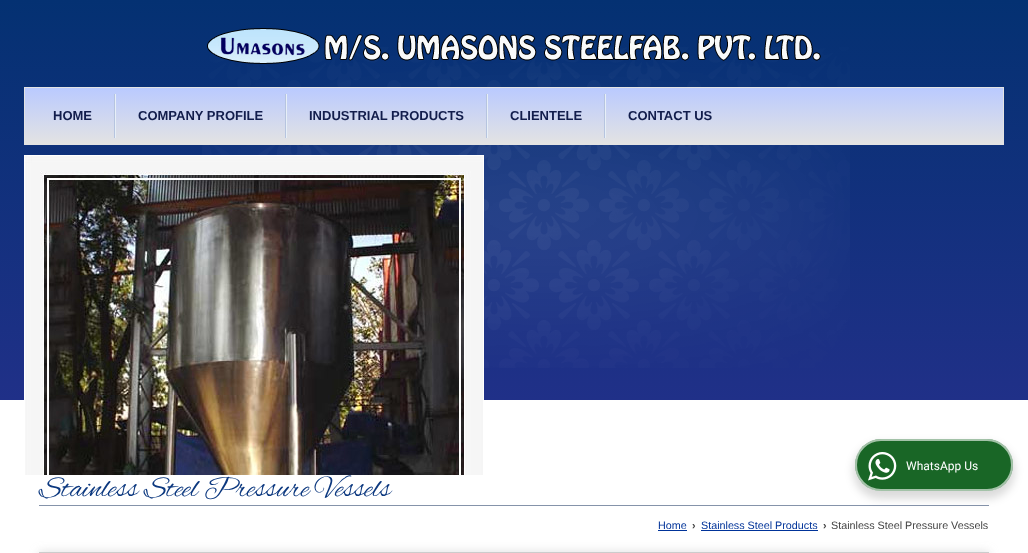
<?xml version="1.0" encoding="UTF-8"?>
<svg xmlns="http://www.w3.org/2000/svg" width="1028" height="553">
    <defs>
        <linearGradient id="g1" gradientUnits="userSpaceOnUse" x1="514" y1="0" x2="514" y2="400"><stop offset="0" stop-color="#043172"/><stop offset="1" stop-color="#203088"/></linearGradient>
        <linearGradient id="g2" gradientUnits="userSpaceOnUse" x1="514" y1="88" x2="514" y2="144"><stop offset="0" stop-color="#BACAFF"/><stop offset="1" stop-color="#E3E3E3"/></linearGradient>
        <filter id="blur1" x="-50%" y="-200%" width="200%" height="500%"><feGaussianBlur stdDeviation="4"/></filter>
        <filter id="blur2" x="-50%" y="-200%" width="200%" height="500%"><feGaussianBlur stdDeviation="5"/></filter>
    </defs>
    <rect width="100%" height="100%" fill="#FFFFFF"/>
    <rect x="0" y="0" width="1028" height="400" fill="url(#g1)"/>
    <image x="202" y="47" width="648" height="321" href="img_01.png"/>
    <image x="207" y="28" width="614" height="36" href="img_02.png"/>
    <rect x="25" y="88" width="978" height="56" fill="url(#g2)"/>
    <rect x="24.5" y="87.5" width="979" height="57" fill="none" stroke="#E3E3E3"/>
    <rect x="114" y="94" width="1" height="44" fill="#B6C4DF"/>
    <text x="53" y="120" font-family="Liberation Sans" font-size="13" font-weight="700" fill="#121D4C">HOME</text>
    <rect x="285" y="94" width="1" height="44" fill="#B6C4DF"/>
    <rect x="115" y="94" width="1" height="44" fill="#E7EFF7"/>
    <text x="138" y="120" font-family="Liberation Sans" font-size="13" font-weight="700" fill="#121D4C">COMPANY PROFILE</text>
    <rect x="486" y="94" width="1" height="44" fill="#B6C4DF"/>
    <rect x="286" y="94" width="1" height="44" fill="#E7EFF7"/>
    <text x="309" y="120" font-family="Liberation Sans" font-size="13" font-weight="700" fill="#121D4C">INDUSTRIAL PRODUCTS</text>
    <rect x="604" y="94" width="1" height="44" fill="#B6C4DF"/>
    <rect x="487" y="94" width="1" height="44" fill="#E7EFF7"/>
    <text x="510" y="120" font-family="Liberation Sans" font-size="13" font-weight="700" fill="#121D4C">CLIENTELE</text>
    <rect x="605" y="94" width="1" height="44" fill="#E7EFF7"/>
    <text x="628" y="120" font-family="Liberation Sans" font-size="13" font-weight="700" fill="#121D4C">CONTACT US</text>
    <image x="24" y="155" width="460" height="320" href="img_03.png"/>
    <rect x="39" y="505" width="950" height="1" fill="#8593AA"/>
    <rect x="853" y="443" width="162" height="56" rx="28" fill="#000000" fill-opacity="0.14" filter="url(#blur1)"/>
    <rect x="855" y="439" width="158" height="52" rx="26" fill="#196626"/>
    <rect x="856" y="440" width="156" height="50" rx="25" fill="none" stroke="#FFFFFF" stroke-opacity="0.6" stroke-width="2"/>
    <image x="868" y="452" width="29" height="29" href="img_04.png"/>
    <text x="906" y="470" font-family="Roboto" font-size="12" fill="#FFFFFF">WhatsApp Us</text>
    <text x="39" y="496" font-family="Alex Brush" font-size="30" fill="#0C387F">Stainless Steel Pressure Vessels</text>
    <text x="658" y="529" font-family="Liberation Sans" font-size="10.75" fill="#003399">Home</text>
    <rect x="658" y="530" width="29" height="1" fill="#003399"/>
    <text x="692" y="529" font-family="Liberation Sans" font-size="10.75" font-weight="700" fill="#444444">›</text>
    <text x="701" y="529" font-family="Liberation Sans" font-size="10.75" fill="#003399">Stainless Steel Products</text>
    <rect x="701" y="530" width="117" height="1" fill="#003399"/>
    <text x="823" y="529" font-family="Liberation Sans" font-size="10.75" font-weight="700" fill="#444444">›</text>
    <text x="831" y="529" font-family="Liberation Sans" font-size="10.75" fill="#444444">Stainless Steel Pressure Vessels</text>
    <rect x="39" y="552" width="950" height="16" fill="#CCCCCC" fill-opacity="0.67" filter="url(#blur2)"/>
    <rect x="39.5" y="552.5" width="949" height="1" fill="none" stroke="#CCCCCC"/>
</svg>
